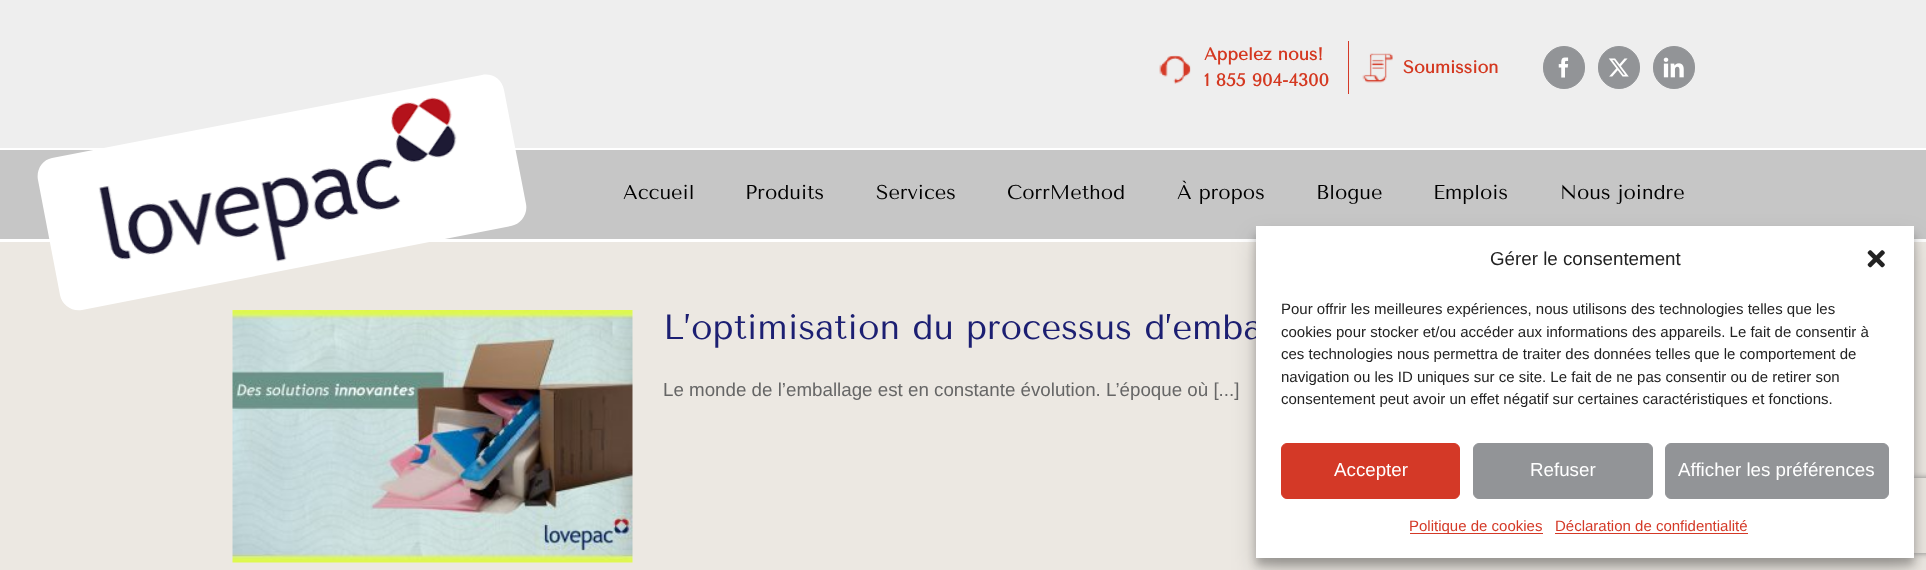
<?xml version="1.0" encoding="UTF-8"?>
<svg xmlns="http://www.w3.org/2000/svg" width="1926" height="570">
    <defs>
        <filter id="blur1" x="-50%" y="-200%" width="200%" height="500%"><feGaussianBlur stdDeviation="4"/></filter>
        <filter id="blur2" x="-50%" y="-200%" width="200%" height="500%"><feGaussianBlur stdDeviation="12.5"/></filter>
        <clipPath id="clip1"><path d="M 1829 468 H 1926 V 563 H 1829 Z M 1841.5 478 H 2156.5 C 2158 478 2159 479 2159 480.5 V 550.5 C 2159 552 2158 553 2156.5 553 H 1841.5 C 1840 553 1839 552 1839 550.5 V 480.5 C 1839 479 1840 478 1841.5 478 Z" clip-rule="evenodd"/></clipPath>
        <filter id="blur3" x="-50%" y="-200%" width="200%" height="500%"><feGaussianBlur stdDeviation="3"/></filter>
    </defs>
    <rect width="100%" height="100%" fill="#ECE8E2"/>
    <rect x="0" y="0" width="1926" height="148" fill="#EEEEEE"/>
    <rect x="0" y="148" width="1926" height="2" fill="#FFFFFF"/>
    <image x="1159" y="55" width="32" height="29" href="img_01.png"/>
    <rect x="1348" y="41" width="1" height="53" fill="#D43927"/>
    <text font-family="Tenor Sans" font-size="17.5" font-weight="700" fill="#D43820">
        <tspan x="1204" y="60">Appelez nous!</tspan>
        <tspan x="1204" y="86">1 855 904-4300</tspan>
    </text>
    <image x="1362" y="53" width="31" height="30" href="img_02.png"/>
    <text x="1403" y="73" font-family="Tenor Sans" font-size="17.5" font-weight="700" fill="#D43820">Soumission</text>
    <rect x="1543.5" y="46.5" width="41" height="42" rx="20.5" fill="#929497" stroke="#929497"/>
    <image x="1558" y="57" width="11" height="21" href="img_03.png"/>
    <rect x="1598.5" y="46.5" width="41" height="42" rx="20.5" fill="#929497" stroke="#929497"/>
    <image x="1608" y="58" width="21" height="19" href="img_04.png"/>
    <rect x="1653.5" y="46.5" width="41" height="42" rx="20.5" fill="#929497" stroke="#929497"/>
    <image x="1663" y="57" width="21" height="21" href="img_05.png"/>
    <rect x="0" y="150" width="1926" height="89" fill="#C6C6C6"/>
    <rect x="0" y="239" width="1926" height="3" fill="#FFFFFF"/>
    <image x="232" y="310" width="401" height="253" href="img_07.png"/>
    <path d="M 52 158 L 482 75 C 492 73 502 79 504 90 L 526 204 C 528 214 521 224 511 226 L 82 310 C 72 312 62 305 60 295 L 38 180 C 36 170 42 160 52 158 Z" fill="#FFFFFF"/>
    <image x="98" y="97" width="359" height="165" href="img_06.png"/>
    <text x="623" y="199" font-family="Tenor Sans" font-size="20" fill="#000000">Accueil</text>
    <text x="745" y="199" font-family="Tenor Sans" font-size="20" fill="#000000">Produits</text>
    <text x="876" y="199" font-family="Tenor Sans" font-size="20" fill="#000000">Services</text>
    <text x="1007" y="199" font-family="Tenor Sans" font-size="20" fill="#000000">CorrMethod</text>
    <text x="1177" y="199" font-family="Tenor Sans" font-size="20" fill="#000000">À propos</text>
    <text x="1316" y="199" font-family="Tenor Sans" font-size="20" fill="#000000">Blogue</text>
    <text x="1433" y="199" font-family="Tenor Sans" font-size="20" fill="#000000">Emplois</text>
    <text x="1560" y="199" font-family="Tenor Sans" font-size="20" fill="#000000">Nous joindre</text>
    <text x="663" y="339" font-family="Tenor Sans" font-size="35" fill="#1C1F72">L’optimisation du processus d’emba</text>
    <text x="663" y="396" font-family="Liberation Sans" font-size="18.75" fill="#666666">Le monde de l’emballage est en constante évolution. L’époque où [...]</text>
    <rect x="1256" y="234" width="658" height="331" fill="#000000" fill-opacity="0.23" filter="url(#blur1)"/>
    <rect x="1256" y="239" width="658" height="331" fill="#000000" fill-opacity="0.19" filter="url(#blur2)"/>
    <g clip-path="url(#clip1)">
        <rect x="1839" y="478" width="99" height="75" rx="2.5" fill="#808080" filter="url(#blur3)"/>
    </g>
    <rect x="1256" y="226" width="658" height="332" fill="#FFFFFF"/>
    <text x="1490" y="265" font-family="Liberation Sans" font-size="18.75" fill="#222222">Gérer le consentement</text>
    <image x="1867" y="250" width="18" height="18" href="img_08.png"/>
    <text font-family="Liberation Sans" font-size="15" fill="#222222">
        <tspan x="1281" y="314">Pour offrir les meilleures expériences, nous utilisons des technologies telles que les</tspan>
        <tspan x="1281" y="337">cookies pour stocker et/ou accéder aux informations des appareils. Le fait de consentir à</tspan>
        <tspan x="1281" y="359">ces technologies nous permettra de traiter des données telles que le comportement de</tspan>
        <tspan x="1281" y="382">navigation ou les ID uniques sur ce site. Le fait de ne pas consentir ou de retirer son</tspan>
        <tspan x="1281" y="404">consentement peut avoir un effet négatif sur certaines caractéristiques et fonctions.</tspan>
    </text>
    <rect x="1281.5" y="443.5" width="178" height="55" rx="5.5" fill="#D43927" stroke="#D43927"/>
    <text x="1334" y="476" font-family="Liberation Sans" font-size="18.75" fill="#FFFFFF">Accepter</text>
    <rect x="1473.5" y="443.5" width="179" height="55" rx="5.5" fill="#929497" stroke="#929497"/>
    <text x="1530" y="476" font-family="Liberation Sans" font-size="18.75" fill="#FFFFFF">Refuser</text>
    <rect x="1665.5" y="443.5" width="223" height="55" rx="5.5" fill="#929497" stroke="#929497"/>
    <text x="1678" y="476" font-family="Liberation Sans" font-size="18.75" fill="#FFFFFF">Afficher les préférences</text>
    <rect x="1410" y="533" width="133" height="1" fill="#D43927"/>
    <text x="1409" y="531" font-family="Liberation Sans" font-size="15" fill="#D43927">Politique de cookies</text>
    <text x="1555" y="531" font-family="Liberation Sans" font-size="15" fill="#D43927">Déclaration de confidentialité</text>
    <rect x="1555" y="533" width="193" height="1" fill="#D43927"/>
</svg>
